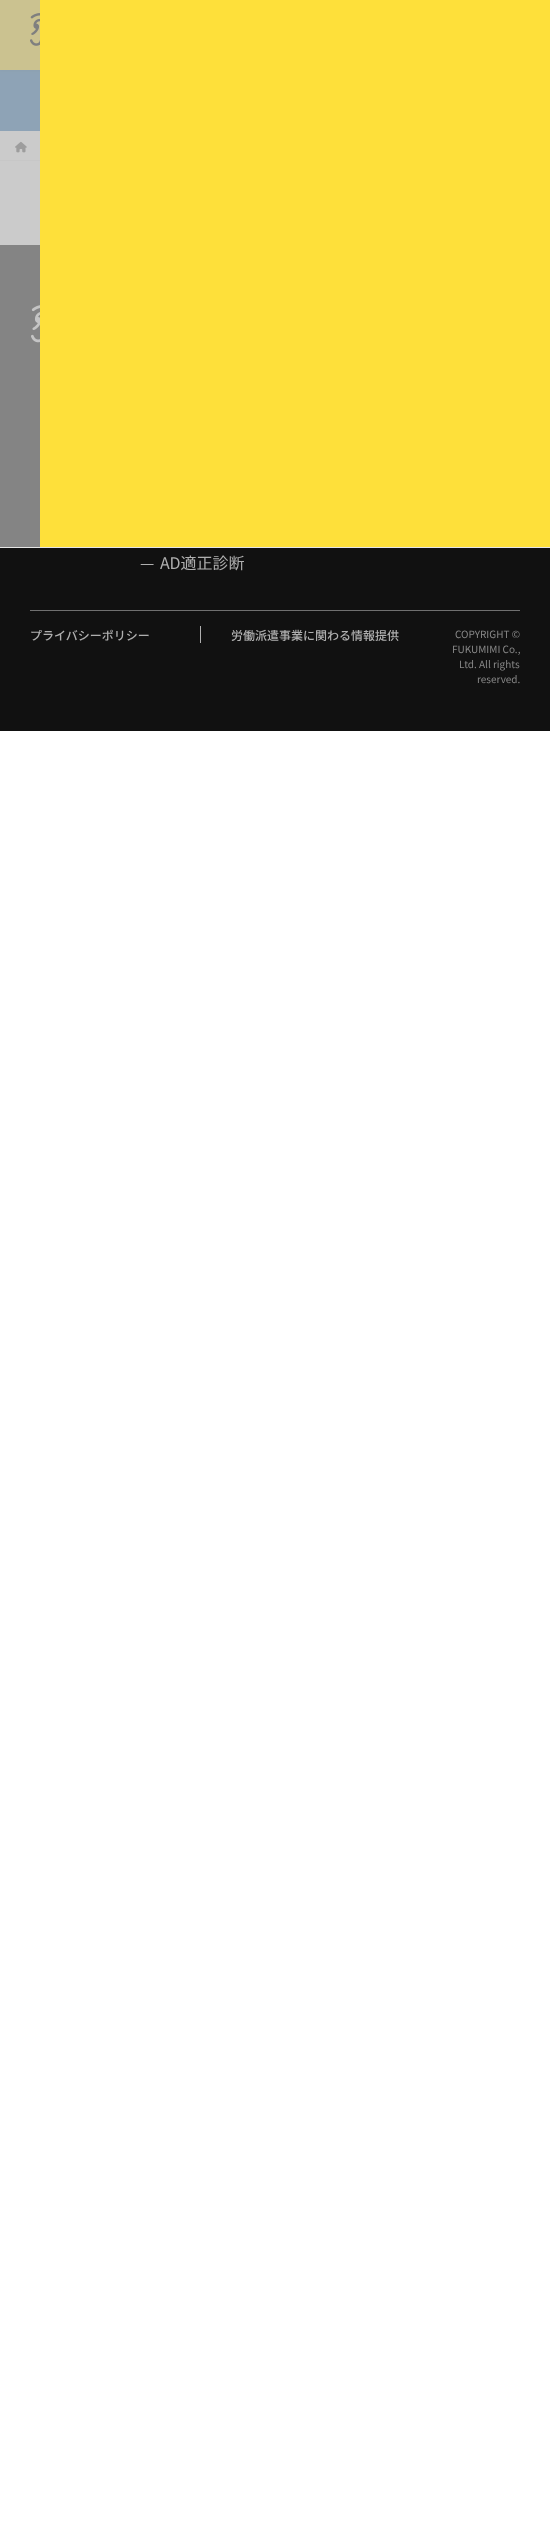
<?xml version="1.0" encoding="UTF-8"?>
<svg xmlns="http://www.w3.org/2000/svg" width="550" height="2548">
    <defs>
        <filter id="blur1" x="-50%" y="-200%" width="200%" height="500%"><feGaussianBlur stdDeviation="1.5"/></filter>
    </defs>
    <rect width="100%" height="100%" fill="#FFFFFF"/>
    <rect x="0" y="70" width="40" height="61" fill="#337AB7"/>
    <rect x="0" y="1" width="550" height="70" fill="#000000" fill-opacity="0.1" filter="url(#blur1)"/>
    <rect x="0" y="0" width="40" height="70" fill="#FEE03A"/>
    <image x="30" y="13" width="10" height="33" href="img_01.png"/>
    <rect x="0" y="245" width="550" height="486" fill="#111111"/>
    <rect x="0" y="547" width="550" height="1" fill="#E5E5E5"/>
    <rect x="0" y="160" width="40" height="1" fill="#F2F2F2"/>
    <image x="15" y="141" width="12" height="12" href="img_02.png"/>
    <image x="31" y="305" width="9" height="38" href="img_03.png"/>
    <rect x="0" y="0" width="40" height="547" fill="#B5B5B5" fill-opacity="0.7"/>
    <rect x="40" y="0" width="510" height="547" fill="#FEE03A"/>
    <rect x="30" y="610" width="490" height="1" fill="#707070"/>
    <text x="140" y="569" word-spacing="2" font-family="Noto Sans JP" font-size="16" fill="#AFAFAF">— AD適正診断</text>
    <text x="30" y="640" font-family="Noto Sans JP" font-size="12" font-weight="500" fill="#AFAFAF">プライバシーポリシー</text>
    <rect x="200" y="626" width="1" height="17" fill="#AFAFAF"/>
    <text x="231" y="640" font-family="Noto Sans JP" font-size="12" font-weight="500" fill="#AFAFAF">労働派遣事業に関わる情報提供</text>
    <text x="455" y="638" font-family="Noto Sans JP" font-size="10" fill="#888888">COPYRIGHT ©</text>
    <text x="452" y="653" font-family="Noto Sans JP" font-size="10" fill="#888888">FUKUMIMI Co.,</text>
    <text x="459" y="668" font-family="Noto Sans JP" font-size="10" fill="#888888">Ltd. All rights</text>
    <text x="477" y="683" font-family="Noto Sans JP" font-size="10" fill="#888888">reserved.</text>
</svg>
